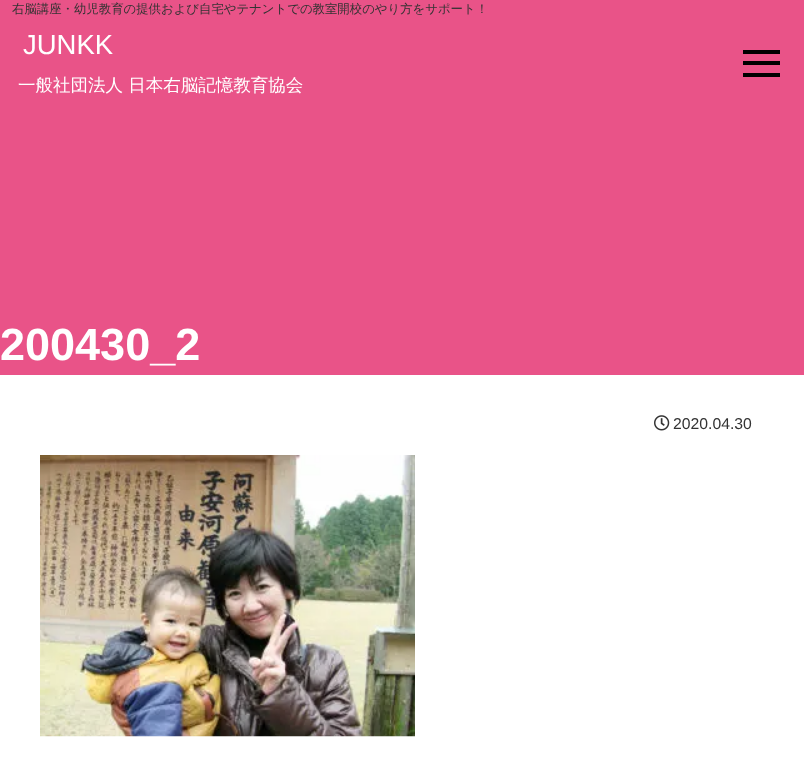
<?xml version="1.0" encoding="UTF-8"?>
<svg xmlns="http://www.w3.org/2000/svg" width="804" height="770">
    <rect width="100%" height="100%" fill="#FFFFFF"/>
    <rect x="0" y="0" width="804" height="375" fill="#E95388"/>
    <text x="12" y="13" font-family="WenQuanYi Zen Hei" font-size="12.4" font-weight="500" fill="#333333">右脳講座・幼児教育の提供および自宅やテナントでの教室開校のやり方をサポート！</text>
    <text x="23" y="54" font-family="Liberation Sans" font-size="27.5" fill="#FFFFFF">JUNKK</text>
    <text x="18" y="91" font-family="WenQuanYi Zen Hei" font-size="17.5" font-weight="500" fill="#FFFFFF">一般社団法人 日本右脳記憶教育協会</text>
    <rect x="743" y="50" width="37" height="4" fill="#000000"/>
    <rect x="743" y="61" width="37" height="4" fill="#000000"/>
    <rect x="743" y="73" width="37" height="4" fill="#000000"/>
    <text x="0" y="360" font-family="Liberation Sans" font-size="45" font-weight="700" fill="#FFFFFF">200430_2</text>
    <image x="654" y="415" width="16" height="16" href="img_01.png"/>
    <text x="673" y="429" font-family="Liberation Sans" font-size="15.75" fill="#333333">2020.04.30</text>
    <image x="40" y="455" width="375" height="282" href="img_02.png"/>
</svg>
